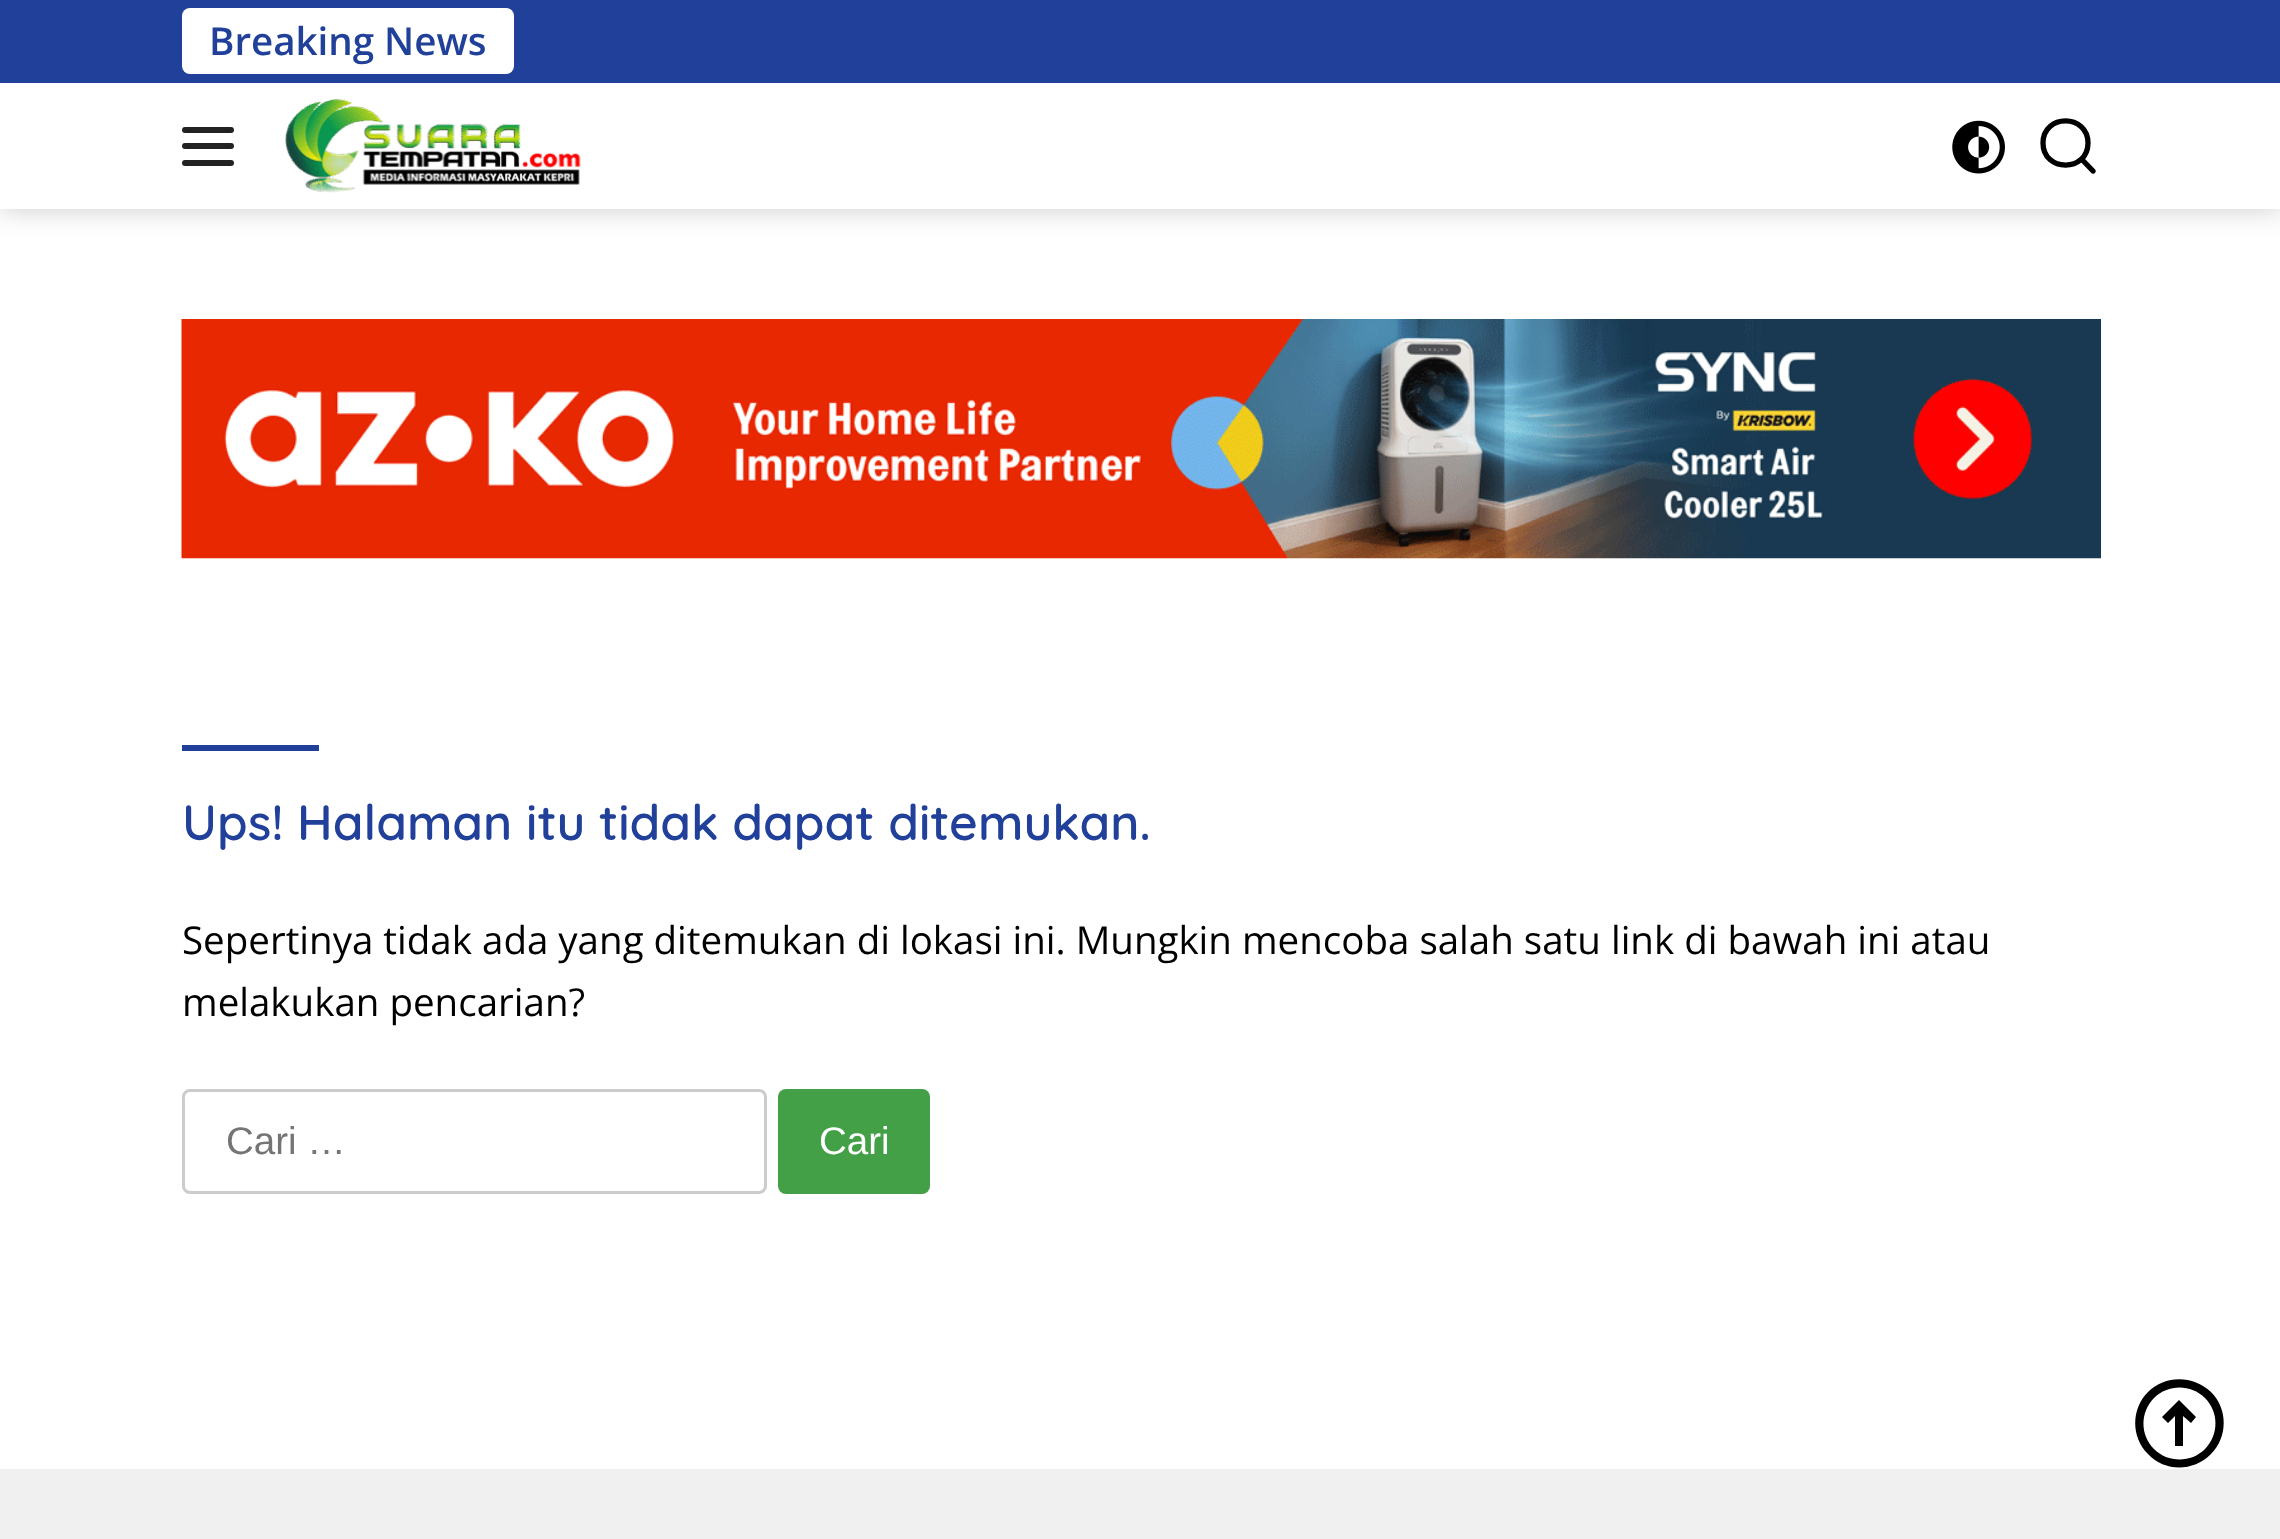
<?xml version="1.0" encoding="UTF-8"?>
<svg xmlns="http://www.w3.org/2000/svg" width="2280" height="1539">
    <defs>
        <filter id="blur1" x="-50%" y="-200%" width="200%" height="500%"><feGaussianBlur stdDeviation="14"/></filter>
    </defs>
    <rect width="100%" height="100%" fill="#FFFFFF"/>
    <rect x="0" y="0" width="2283" height="209" fill="#000000" fill-opacity="0.2" filter="url(#blur1)"/>
    <rect x="0" y="83" width="2280" height="126" fill="#FFFFFF"/>
    <rect x="0" y="0" width="2280" height="83" fill="#21409A"/>
    <rect x="182" y="8" width="332" height="66" rx="8" fill="#FFFFFF"/>
    <text x="209" y="55" font-family="Open Sans" font-size="38.5" font-weight="600" fill="#21409A">Breaking News</text>
    <rect x="182" y="127" width="52" height="6" rx="3" fill="#222222"/>
    <rect x="182" y="143" width="52" height="6" rx="3" fill="#222222"/>
    <rect x="182" y="160" width="52" height="6" rx="3" fill="#222222"/>
    <image x="284" y="99" width="297" height="94" href="img_01.png"/>
    <image x="1952" y="120" width="53" height="54" href="img_02.png"/>
    <path d="M 2093 171 L 2081.5 159 M 2088 143 C 2088 172.5 2043 172.5 2043 143 C 2043 113.5 2088 113.5 2088 143 Z" fill="none" stroke="#000000" stroke-width="5.3" stroke-linecap="round"/>
    <image x="181" y="319" width="1920" height="240" href="img_03.png"/>
    <rect x="182" y="745" width="137" height="6" fill="#21409A"/>
    <text x="182" y="840" font-family="Quicksand" font-size="49.5" font-weight="600" fill="#21409A">Ups! Halaman itu tidak dapat ditemukan.</text>
    <text font-family="Open Sans" font-size="38.5" fill="#000000">
        <tspan x="182" y="954">Sepertinya tidak ada yang ditemukan di lokasi ini. Mungkin mencoba salah satu link di bawah ini atau</tspan>
        <tspan x="182" y="1016">melakukan pencarian?</tspan>
    </text>
    <rect x="183.5" y="1090.5" width="582" height="102" rx="6.5" fill="none" stroke="#CCCCCC" stroke-width="3"/>
    <text x="226" y="1154" font-family="Liberation Sans" font-size="38.5" fill="#757575">Cari …</text>
    <rect x="778" y="1089" width="152" height="105" rx="8" fill="#43A047"/>
    <text x="819" y="1154" font-family="Liberation Sans" font-size="38.5" fill="#FFFFFF">Cari</text>
    <rect x="0" y="1469" width="2280" height="70" fill="#F0F0F0"/>
    <path d="M 2191 1423 L 2196 1417 L 2179 1400 L 2162 1417 L 2168 1423 L 2175 1416 V 1446 H 2183 V 1416 Z" fill="#000000"/>
    <path d="M 2211 1392 C 2193 1375 2165 1375 2148 1392 C 2131 1409 2131 1437 2148 1454 C 2165 1472 2193 1472 2211 1454 C 2228 1437 2228 1409 2211 1392 Z M 2205 1398 C 2191 1384 2168 1384 2154 1398 C 2140 1412 2140 1435 2154 1449 C 2168 1463 2191 1463 2205 1449 C 2219 1435 2219 1412 2205 1398 Z" fill="#000000" fill-rule="evenodd"/>
</svg>
